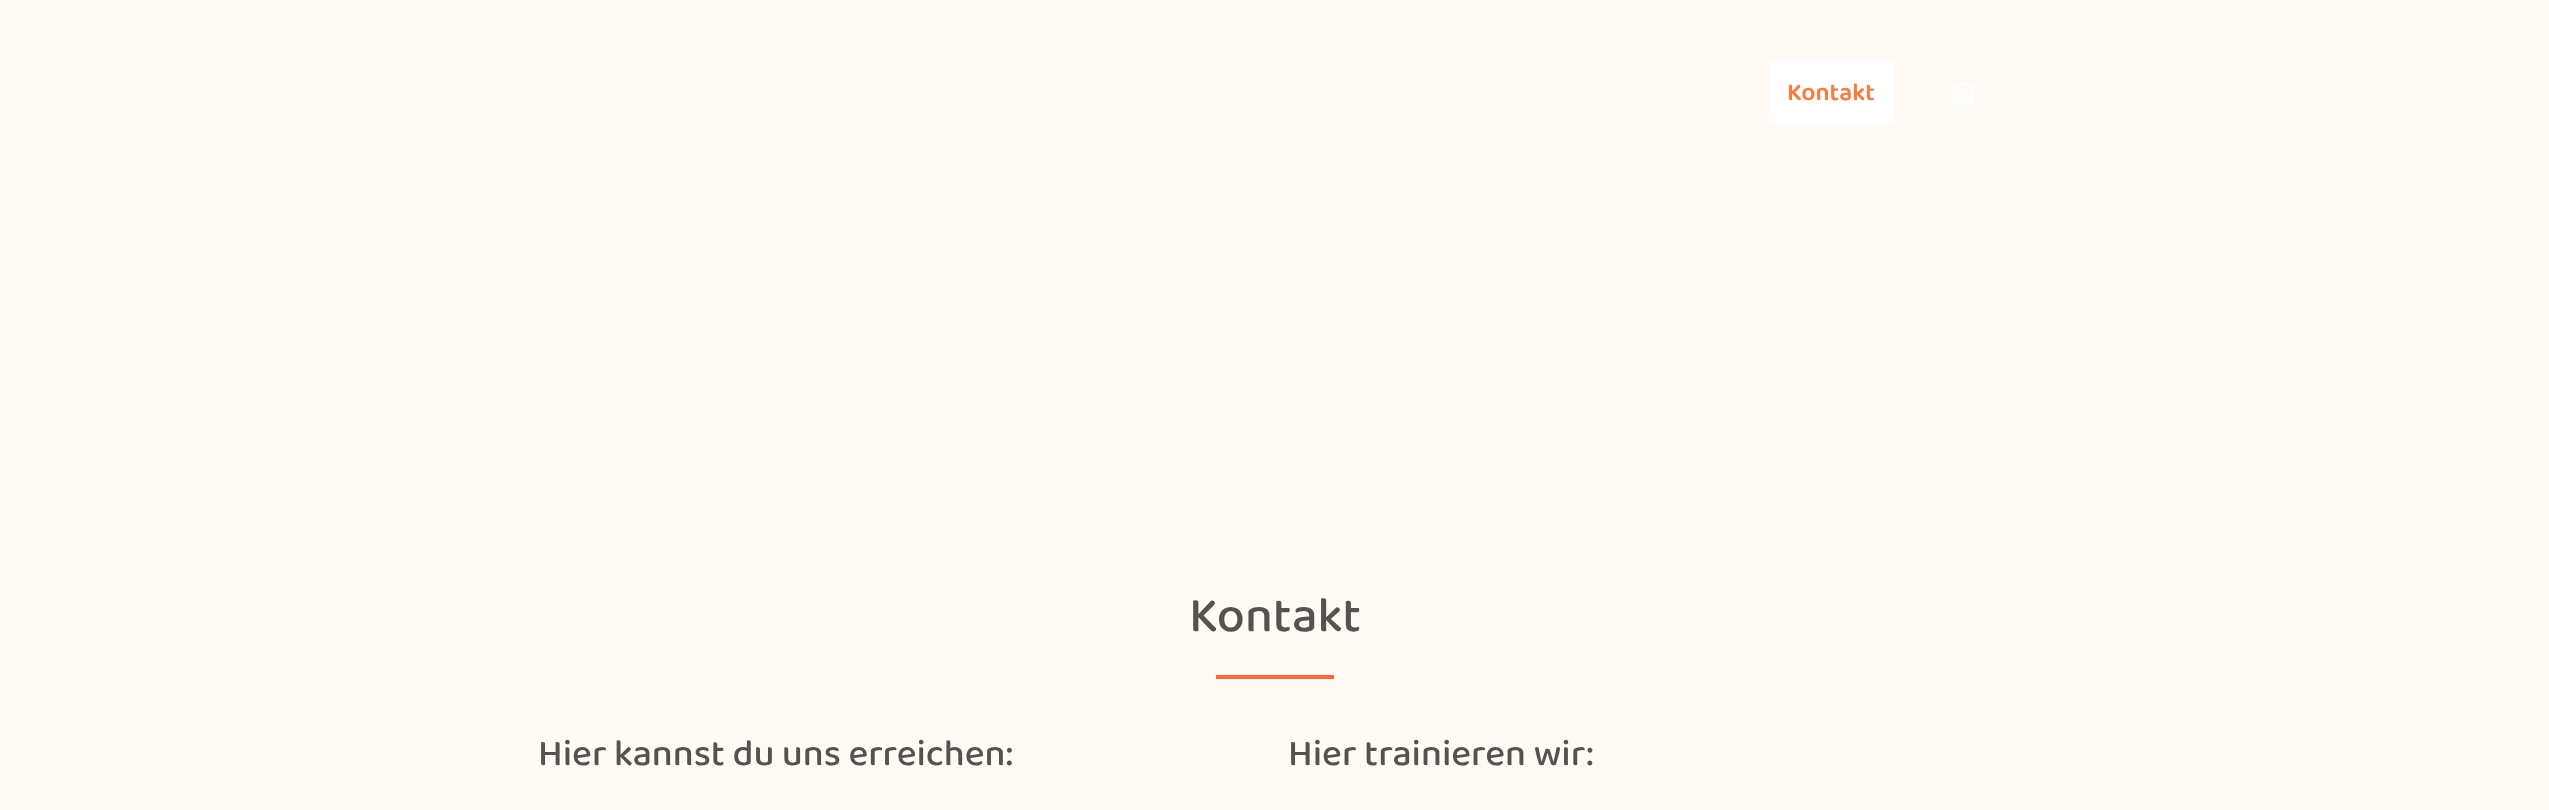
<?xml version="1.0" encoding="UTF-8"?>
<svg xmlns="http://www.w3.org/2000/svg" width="2549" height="810">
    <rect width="100%" height="100%" fill="#FFFBF4"/>
    <rect x="1769" y="61" width="125" height="63" fill="#FFFFFF"/>
    <text x="1787" y="100" font-family="'Baloo 2'" font-size="25" font-weight="600" fill="#FF7A3D">Kontakt</text>
    <image x="1951" y="83" width="23" height="22" href="img_01.png"/>
    <text x="1189" y="631" font-family="'Baloo 2'" font-size="50" font-weight="500" fill="#575250">Kontakt</text>
    <rect x="1216" y="675" width="118" height="4" fill="#FF6633"/>
    <text x="538" y="765" font-family="'Baloo 2'" font-size="37.5" font-weight="500" fill="#575250">Hier kannst du uns erreichen:</text>
    <text x="1288" y="765" font-family="'Baloo 2'" font-size="37.5" font-weight="500" fill="#575250">Hier trainieren wir:</text>
</svg>
